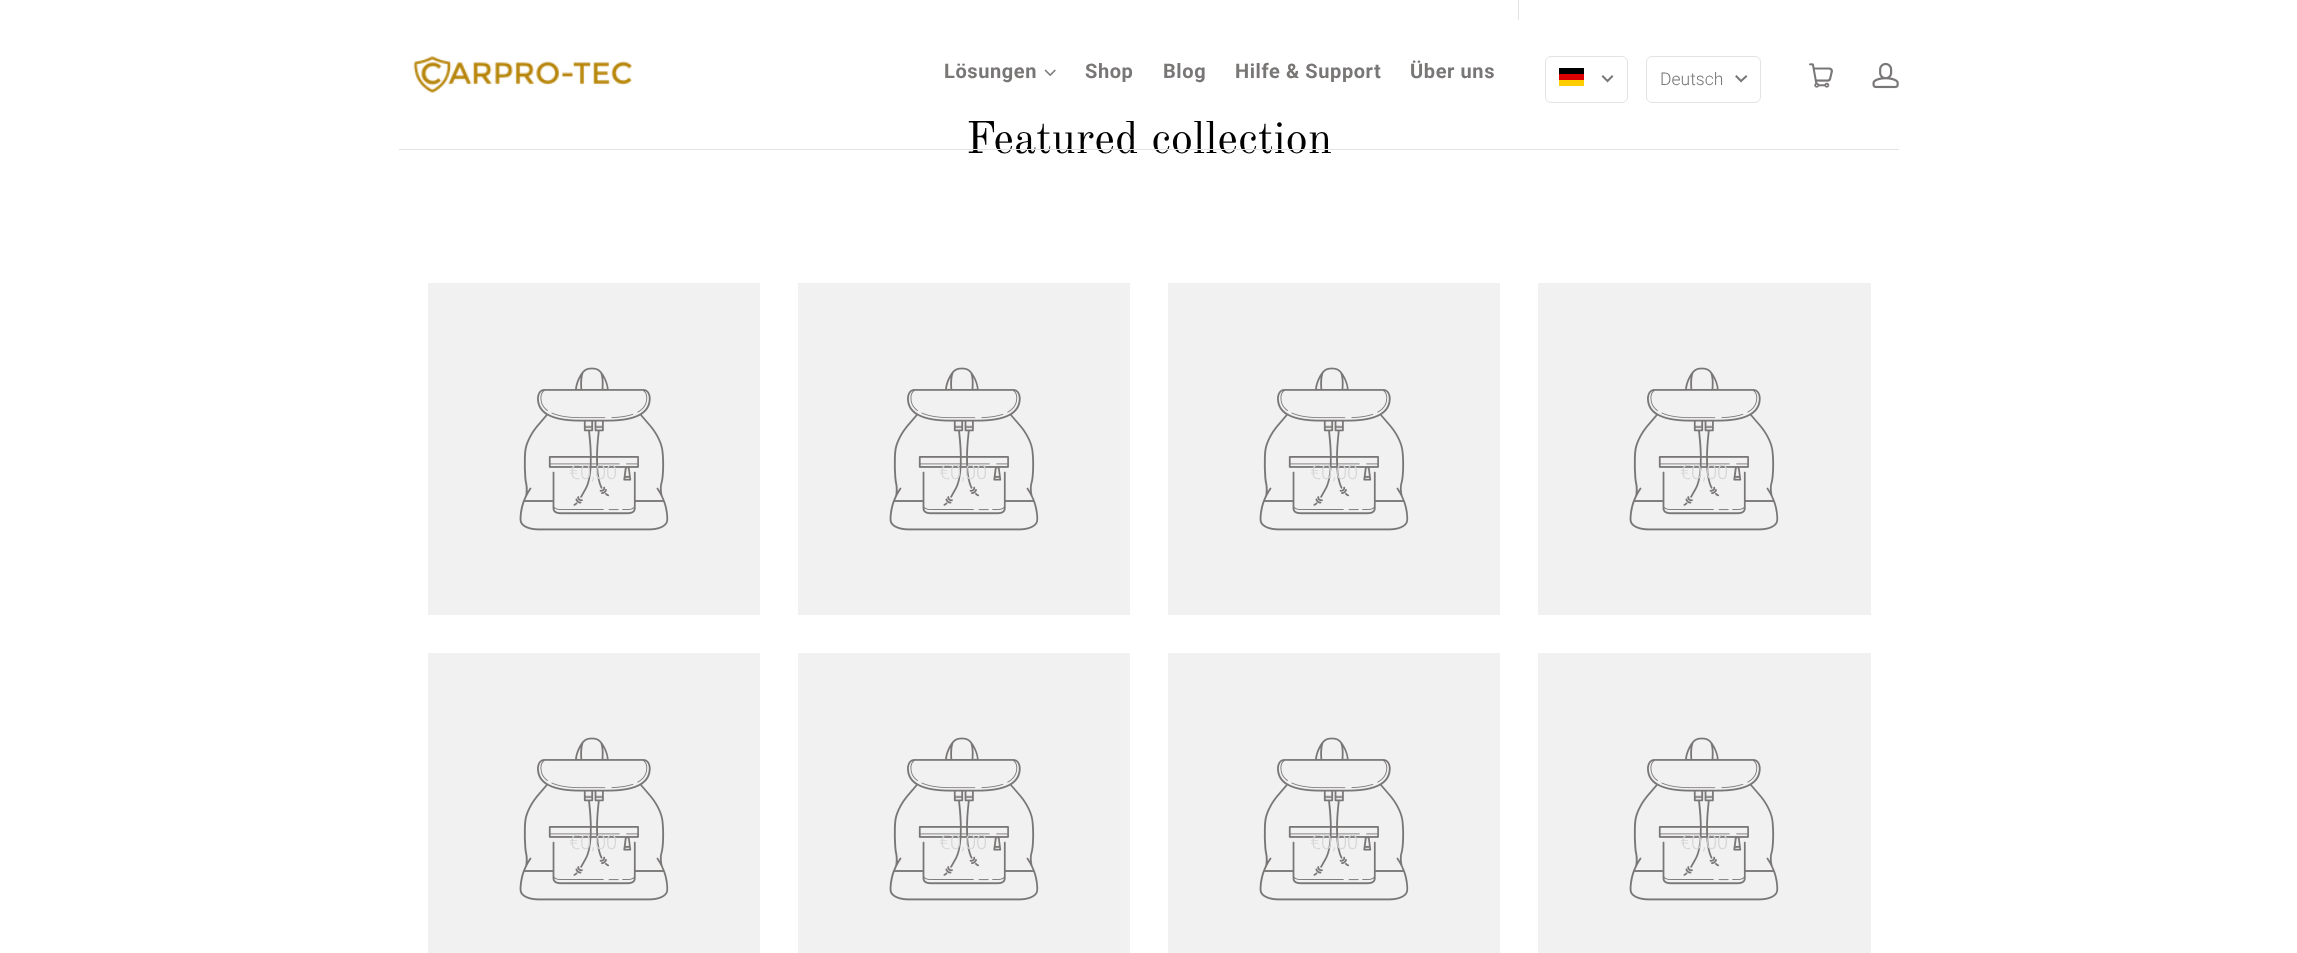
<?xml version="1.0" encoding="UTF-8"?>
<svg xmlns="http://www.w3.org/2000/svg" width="2297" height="953">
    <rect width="100%" height="100%" fill="#FFFFFF"/>
    <text x="966" y="153" font-family="Old Standard TT" font-size="45" fill="#000000">Featured collection</text>
    <rect x="399" y="149" width="1500" height="1" fill="#E3E3E3"/>
    <image x="413" y="56" width="220" height="37" href="img_01.png"/>
    <text x="944" y="78" font-family="Roboto" font-size="20" font-weight="700" letter-spacing="0.6" fill="#797676">Lösungen</text>
    <image x="1044" y="69" width="12" height="7" href="img_02.png"/>
    <text x="1085" y="78" font-family="Roboto" font-size="20" font-weight="700" letter-spacing="0.6" fill="#797676">Shop</text>
    <text x="1163" y="78" font-family="Roboto" font-size="20" font-weight="700" letter-spacing="0.6" fill="#797676">Blog</text>
    <text x="1235" y="78" font-family="Roboto" font-size="20" font-weight="700" letter-spacing="0.6" fill="#797676">Hilfe &amp; Support</text>
    <text x="1410" y="78" font-family="Roboto" font-size="20" font-weight="700" letter-spacing="0.6" fill="#797676">Über uns</text>
    <rect x="1518" y="0" width="1" height="20" fill="#E3E3E3"/>
    <rect x="1545.5" y="56.5" width="82" height="46" rx="5.5" fill="none" stroke="#E3E3E3"/>
    <rect x="1559" y="80" width="25" height="6" fill="#FFCE00"/>
    <rect x="1559" y="68" width="25" height="6" fill="#000000"/>
    <rect x="1559" y="74" width="25" height="6" fill="#DD0000"/>
    <path d="M 1607.5 81 L 1612 76.5 M 1607.5 81 L 1603 76.5" fill="none" stroke="#797676" stroke-width="2" stroke-linecap="square"/>
    <rect x="1646.5" y="56.5" width="114" height="46" rx="5.5" fill="none" stroke="#E3E3E3"/>
    <text x="1660" y="85" font-family="Roboto" font-size="17.5" font-weight="300" fill="#797676">Deutsch</text>
    <path d="M 1741 81 L 1746 76.5 M 1741 81 L 1736.5 76.5" fill="none" stroke="#797676" stroke-width="2" stroke-linecap="square"/>
    <image x="1809" y="63" width="24" height="25" href="img_03.png"/>
    <image x="1872" y="62" width="27" height="27" href="img_04.png"/>
    <rect x="428" y="283" width="332" height="332" fill="#F1F1F1"/>
    <image x="519" y="367" width="150" height="164" href="img_05.png"/>
    <text x="569" y="479" font-family="Roboto" font-size="20" font-weight="300" fill="#D6D5D5">€0,00</text>
    <rect x="798" y="283" width="332" height="332" fill="#F1F1F1"/>
    <image x="889" y="367" width="150" height="164" href="img_05.png"/>
    <text x="939" y="479" font-family="Roboto" font-size="20" font-weight="300" fill="#D6D5D5">€0,00</text>
    <rect x="1168" y="283" width="332" height="332" fill="#F1F1F1"/>
    <image x="1259" y="367" width="150" height="164" href="img_05.png"/>
    <text x="1310" y="479" font-family="Roboto" font-size="20" font-weight="300" fill="#D6D5D5">€0,00</text>
    <rect x="1538" y="283" width="333" height="332" fill="#F1F1F1"/>
    <image x="1629" y="367" width="150" height="164" href="img_05.png"/>
    <text x="1680" y="479" font-family="Roboto" font-size="20" font-weight="300" fill="#D6D5D5">€0,00</text>
    <rect x="428" y="653" width="332" height="300" fill="#F1F1F1"/>
    <image x="519" y="737" width="150" height="164" href="img_05.png"/>
    <text x="569" y="849" font-family="Roboto" font-size="20" font-weight="300" fill="#D6D5D5">€0,00</text>
    <rect x="798" y="653" width="332" height="300" fill="#F1F1F1"/>
    <image x="889" y="737" width="150" height="164" href="img_05.png"/>
    <text x="939" y="849" font-family="Roboto" font-size="20" font-weight="300" fill="#D6D5D5">€0,00</text>
    <rect x="1168" y="653" width="332" height="300" fill="#F1F1F1"/>
    <image x="1259" y="737" width="150" height="164" href="img_05.png"/>
    <text x="1310" y="849" font-family="Roboto" font-size="20" font-weight="300" fill="#D6D5D5">€0,00</text>
    <rect x="1538" y="653" width="333" height="300" fill="#F1F1F1"/>
    <image x="1629" y="737" width="150" height="164" href="img_05.png"/>
    <text x="1680" y="849" font-family="Roboto" font-size="20" font-weight="300" fill="#D6D5D5">€0,00</text>
</svg>
